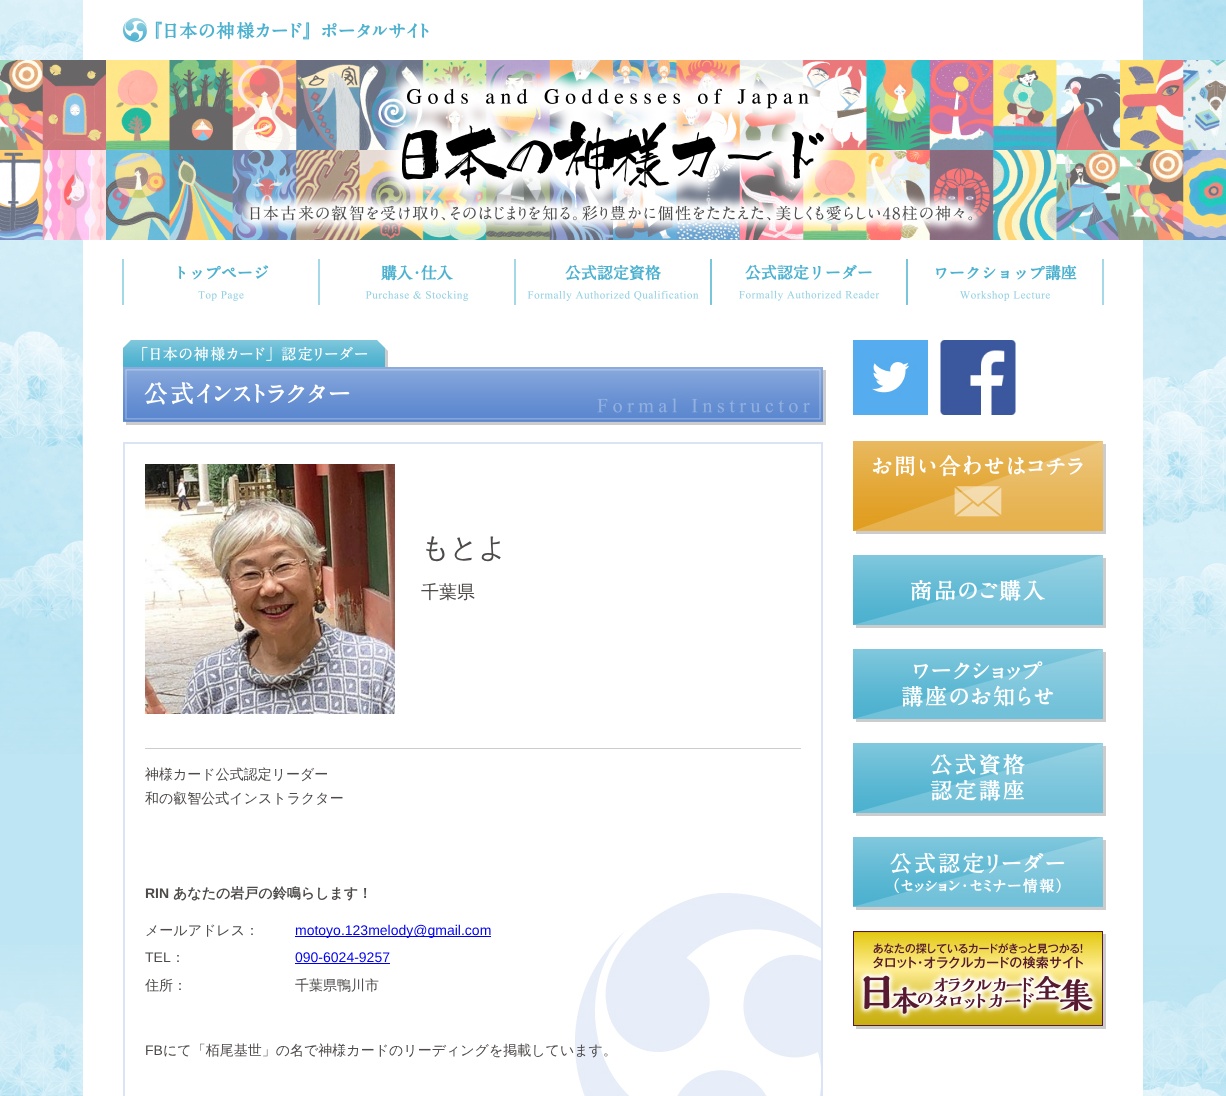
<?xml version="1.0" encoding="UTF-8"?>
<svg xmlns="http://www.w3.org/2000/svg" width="1226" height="1096">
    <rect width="100%" height="100%" fill="#BEE5F3"/>
    <image x="0" y="0" width="1226" height="754" href="img_01.png"/>
    <image x="0" y="60" width="1226" height="180" href="img_02.png"/>
    <image x="0" y="945" width="1226" height="151" href="img_03.png"/>
    <rect x="83" y="0" width="1060" height="1096" fill="#FFFFFF"/>
    <image x="123" y="16" width="306" height="27" href="img_04.png"/>
    <image x="83" y="60" width="1060" height="180" href="img_05.png"/>
    <image x="122" y="259" width="197" height="46" href="img_06.png"/>
    <image x="319" y="259" width="196" height="46" href="img_07.png"/>
    <image x="515" y="259" width="196" height="46" href="img_08.png"/>
    <image x="711" y="259" width="196" height="46" href="img_09.png"/>
    <image x="907" y="259" width="197" height="46" href="img_10.png"/>
    <image x="123" y="340" width="265" height="27" href="img_11.png"/>
    <path d="M 126 422 V 425 H 826 V 370 H 823 V 422 Z" fill="#CCCCCC"/>
    <image x="123" y="367" width="700" height="55" href="img_12.png"/>
    <image x="575" y="893" width="246" height="203" href="img_13.png"/>
    <rect x="124" y="443" width="698" height="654" fill="none" stroke="#DBE4F4" stroke-width="2"/>
    <image x="145" y="464" width="250" height="250" href="img_14.png"/>
    <text x="421" y="557" font-family="WenQuanYi Zen Hei" font-size="28" font-weight="500" fill="#4D4A49">もとよ</text>
    <text x="421" y="598" font-family="WenQuanYi Zen Hei" font-size="18" font-weight="500" fill="#4D4A49">千葉県</text>
    <rect x="145" y="748" width="656" height="1" fill="#CCCCCC"/>
    <text font-family="WenQuanYi Zen Hei" font-size="14" font-weight="500" fill="#4D4A49">
        <tspan x="145" y="779">神様カード公式認定リーダー</tspan>
        <tspan x="145" y="803">和の叡智公式インストラクター</tspan>
    </text>
    <text x="145" y="898" font-family="Liberation Sans" font-size="14" font-weight="700" fill="#4D4A49">RIN</text>
    <text x="173" y="898" font-family="WenQuanYi Zen Hei" font-size="14" font-weight="700" fill="#4D4A49">あなたの岩戸の鈴鳴らします！</text>
    <text x="145" y="935" font-family="WenQuanYi Zen Hei" font-size="14" font-weight="500" fill="#4D4A49">メールアドレス：</text>
    <rect x="295" y="936" width="196" height="1" fill="#0000EE"/>
    <text x="295" y="935" font-family="Liberation Sans" font-size="14" fill="#0000EE">motoyo.123melody@gmail.com</text>
    <text x="145" y="962" font-family="Liberation Sans" font-size="14" fill="#4D4A49">TEL</text>
    <text x="171" y="962" font-family="WenQuanYi Zen Hei" font-size="14" font-weight="500" fill="#4D4A49">：</text>
    <text x="295" y="962" font-family="Liberation Sans" font-size="14" fill="#0000EE">090-6024-9257</text>
    <rect x="295" y="963" width="95" height="1" fill="#0000EE"/>
    <text x="145" y="990" font-family="WenQuanYi Zen Hei" font-size="14" font-weight="500" fill="#4D4A49">住所：</text>
    <text x="295" y="990" font-family="WenQuanYi Zen Hei" font-size="14" font-weight="500" fill="#4D4A49">千葉県鴨川市</text>
    <text x="145" y="1055" font-family="Liberation Sans" font-size="14" fill="#4D4A49">FB</text>
    <text x="163" y="1055" font-family="WenQuanYi Zen Hei" font-size="14" font-weight="500" fill="#4D4A49">にて「栢尾基世」の名で神様カードのリーディングを掲載しています。</text>
    <image x="853" y="340" width="75" height="75" href="img_15.png"/>
    <image x="940" y="340" width="76" height="75" href="img_16.png"/>
    <path d="M 856 531 V 534 H 1106 V 444 H 1103 V 531 Z" fill="#CCCCCC"/>
    <image x="853" y="441" width="250" height="90" href="img_17.png"/>
    <path d="M 856 625 V 628 H 1106 V 558 H 1103 V 625 Z" fill="#CCCCCC"/>
    <image x="853" y="555" width="250" height="70" href="img_18.png"/>
    <path d="M 856 719 V 722 H 1106 V 652 H 1103 V 719 Z" fill="#CCCCCC"/>
    <image x="853" y="649" width="250" height="70" href="img_19.png"/>
    <path d="M 856 813 V 816 H 1106 V 746 H 1103 V 813 Z" fill="#CCCCCC"/>
    <image x="853" y="743" width="250" height="70" href="img_20.png"/>
    <path d="M 856 907 V 910 H 1106 V 840 H 1103 V 907 Z" fill="#CCCCCC"/>
    <image x="853" y="837" width="250" height="70" href="img_21.png"/>
    <path d="M 856 1026 V 1029 H 1106 V 934 H 1103 V 1026 Z" fill="#CCCCCC"/>
    <image x="853" y="931" width="250" height="95" href="img_22.png"/>
</svg>
